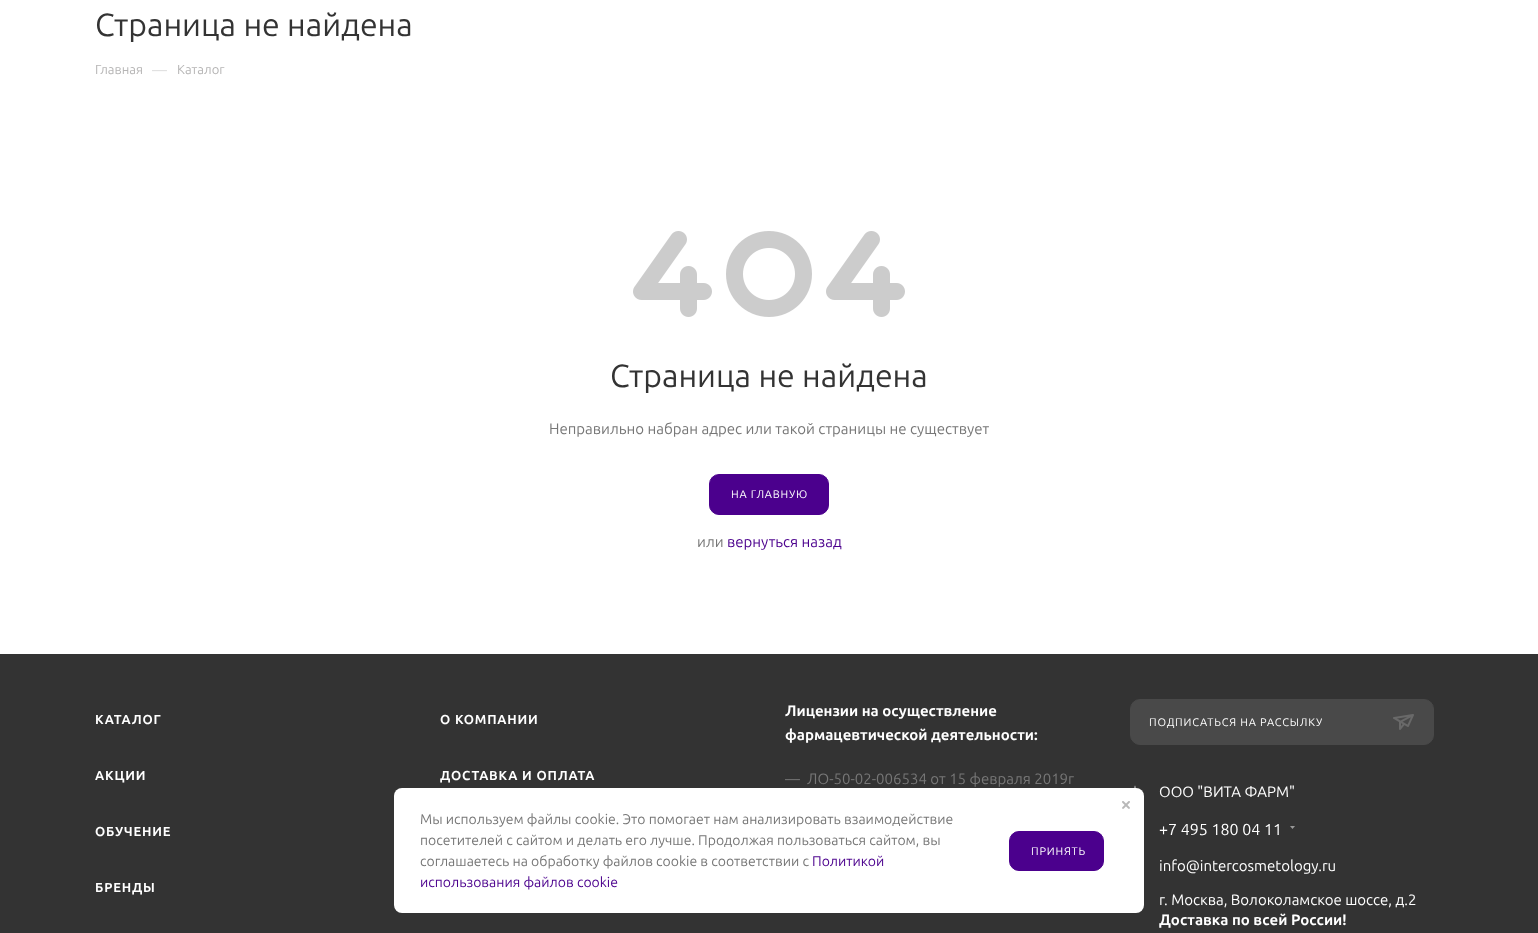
<?xml version="1.0" encoding="UTF-8"?>
<svg xmlns="http://www.w3.org/2000/svg" width="1538" height="933">
    <rect width="100%" height="100%" fill="#FFFFFF"/>
    <text x="95" y="36" font-family="Ubuntu" font-size="32" fill="#333333">Страница не найдена</text>
    <text x="95" y="74" font-family="Ubuntu" font-size="13" fill="#B6B5B5">Главная</text>
    <text x="152" y="75" font-family="Ubuntu" font-size="15" fill="#DDDDDD">—</text>
    <text x="177" y="74" font-family="Ubuntu" font-size="13" fill="#B6B5B5">Каталог</text>
    <image x="633" y="231" width="272" height="86" href="img_01.png"/>
    <text x="610" y="387" font-family="Ubuntu" font-size="32" fill="#333333">Страница не найдена</text>
    <text x="549" y="434" font-family="Ubuntu" font-size="15" fill="#777777">Неправильно набран адрес или такой страницы не существует</text>
    <rect x="709.5" y="474.5" width="119" height="40" rx="9.5" fill="#4B008D" stroke="#4B008D"/>
    <text x="731" y="498" font-family="Ubuntu" font-size="11" letter-spacing="0.8" fill="#FFFFFF">НА ГЛАВНУЮ</text>
    <text x="697" y="547" font-family="Ubuntu" font-size="15" fill="#777777">или</text>
    <text x="727" y="547" font-family="Ubuntu" font-size="15" fill="#4B008D">вернуться назад</text>
    <rect x="0" y="654" width="1538" height="279" fill="#333333"/>
    <text x="95" y="724" font-family="Ubuntu" font-size="13" font-weight="700" letter-spacing="0.8" fill="#FFFFFF">КАТАЛОГ</text>
    <text x="95" y="780" font-family="Ubuntu" font-size="13" font-weight="700" letter-spacing="0.8" fill="#FFFFFF">АКЦИИ</text>
    <text x="95" y="836" font-family="Ubuntu" font-size="13" font-weight="700" letter-spacing="0.8" fill="#FFFFFF">ОБУЧЕНИЕ</text>
    <text x="95" y="892" font-family="Ubuntu" font-size="13" font-weight="700" letter-spacing="0.8" fill="#FFFFFF">БРЕНДЫ</text>
    <text x="440" y="724" font-family="Ubuntu" font-size="13" font-weight="700" letter-spacing="0.8" fill="#FFFFFF">О КОМПАНИИ</text>
    <text x="440" y="780" font-family="Ubuntu" font-size="13" font-weight="700" letter-spacing="0.8" fill="#FFFFFF">ДОСТАВКА И ОПЛАТА</text>
    <text font-family="Ubuntu" font-size="15" font-weight="700" fill="#FFFFFF">
        <tspan x="785" y="716">Лицензии на осуществление</tspan>
        <tspan x="785" y="740">фармацевтической деятельности:</tspan>
    </text>
    <text x="785" y="784" font-family="Ubuntu" font-size="15" fill="#777777">—</text>
    <text x="807" y="784" font-family="Ubuntu" font-size="15" fill="#777777">ЛО-50-02-006534 от 15 февраля 2019г</text>
    <rect x="1130.5" y="699.5" width="303" height="45" rx="9.5" fill="#494949" stroke="#494949"/>
    <text x="1149" y="726" font-family="Ubuntu" font-size="11" letter-spacing="0.8" fill="#FFFFFF">ПОДПИСАТЬСЯ НА РАССЫЛКУ</text>
    <image x="1393" y="714" width="21" height="16" href="img_02.png"/>
    <image x="1134" y="785" width="4" height="4" href="img_03.png"/>
    <text x="1159" y="797" font-family="Ubuntu" font-size="15" fill="#FFFFFF">ООО "ВИТА ФАРМ"</text>
    <text x="1159" y="835" font-family="Ubuntu" font-size="16" fill="#FFFFFF">+7 495 180 04 11</text>
    <path d="M 1290 826 H 1295 L 1292.5 829 Z" fill="#999999" fill-rule="evenodd"/>
    <text x="1159" y="871" font-family="Ubuntu" font-size="15" fill="#FFFFFF">info@intercosmetology.ru</text>
    <text x="1159" y="905" font-family="Ubuntu" font-size="15" fill="#FFFFFF">г. Москва, Волоколамское шоссе, д.2</text>
    <text x="1159" y="925" font-family="Ubuntu" font-size="15" font-weight="700" fill="#FFFFFF">Доставка по всей России!</text>
    <rect x="394" y="788" width="750" height="125" rx="8" fill="#FFFFFF"/>
    <image x="1122" y="801" width="8" height="8" href="img_04.png"/>
    <text font-family="Ubuntu" font-size="14" fill="#777777">
        <tspan x="420" y="824">Мы используем файлы cookie. Это помогает нам анализировать взаимодействие</tspan>
        <tspan x="420" y="845">посетителей с сайтом и делать его лучше. Продолжая пользоваться сайтом, вы</tspan>
        <tspan x="420" y="866">соглашаетесь на обработку файлов cookie в соответствии с</tspan>
    </text>
    <text x="812" y="866" font-family="Ubuntu" font-size="14" fill="#4B008D">Политикой</text>
    <text x="420" y="887" font-family="Ubuntu" font-size="14" fill="#4B008D">использования файлов cookie</text>
    <rect x="1009.5" y="831.5" width="94" height="39" rx="9.5" fill="#4B008D" stroke="#4B008D"/>
    <text x="1031" y="855" font-family="Ubuntu" font-size="11" letter-spacing="0.8" fill="#FFFFFF">ПРИНЯТЬ</text>
</svg>
